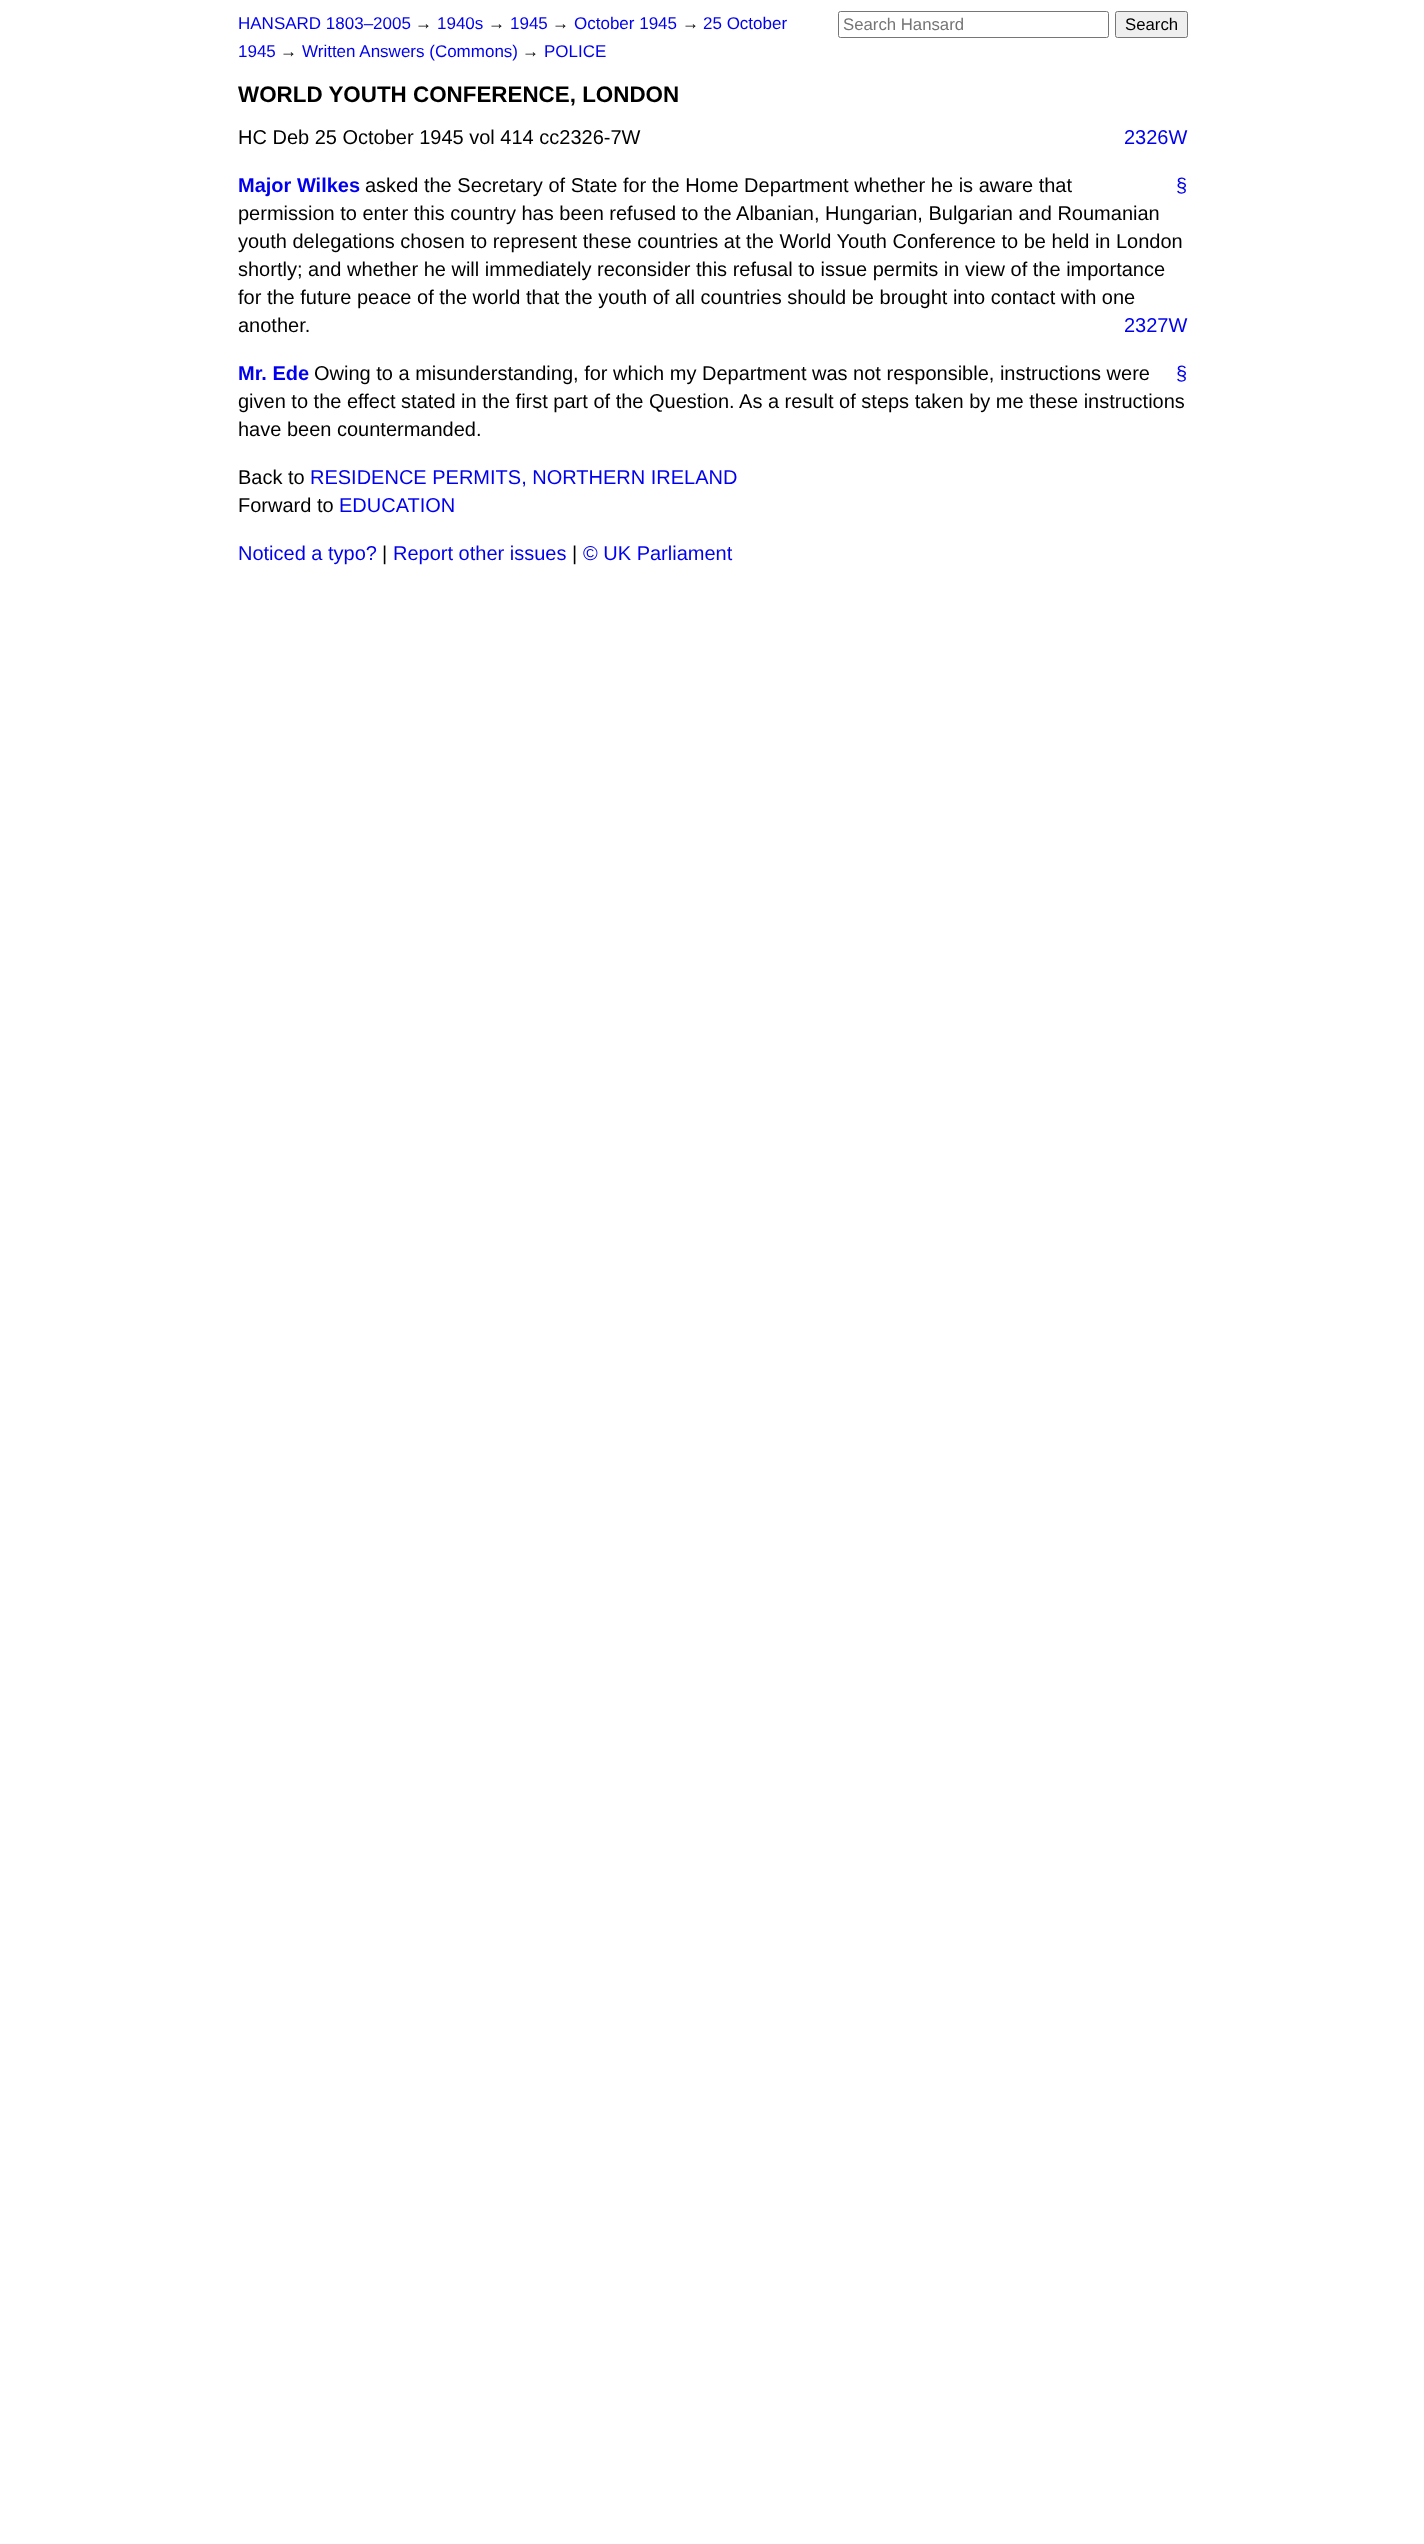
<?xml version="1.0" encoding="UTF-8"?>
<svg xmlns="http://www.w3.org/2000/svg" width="1424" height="2544">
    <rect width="100%" height="100%" fill="#FFFFFF"/>
    <text x="238" y="29" font-family="Liberation Sans" font-size="17" fill="#0000EE">HANSARD 1803–2005</text>
    <text x="415" y="29" font-family="Liberation Sans" font-size="17" fill="#000000">→</text>
    <text x="437" y="29" font-family="Liberation Sans" font-size="17" fill="#0000EE">1940s</text>
    <text x="488" y="29" font-family="Liberation Sans" font-size="17" fill="#000000">→</text>
    <text x="510" y="29" font-family="Liberation Sans" font-size="17" fill="#0000EE">1945</text>
    <text x="552" y="29" font-family="Liberation Sans" font-size="17" fill="#000000">→</text>
    <text x="574" y="29" font-family="Liberation Sans" font-size="17" fill="#0000EE">October 1945</text>
    <text x="682" y="29" font-family="Liberation Sans" font-size="17" fill="#000000">→</text>
    <text x="703" y="29" font-family="Liberation Sans" font-size="17" fill="#0000EE">25 October</text>
    <text x="238" y="57" font-family="Liberation Sans" font-size="17" fill="#0000EE">1945</text>
    <text x="280" y="57" font-family="Liberation Sans" font-size="17" fill="#000000">→</text>
    <text x="302" y="57" font-family="Liberation Sans" font-size="17" fill="#0000EE">Written Answers (Commons)</text>
    <text x="522" y="57" font-family="Liberation Sans" font-size="17" fill="#000000">→</text>
    <text x="544" y="57" font-family="Liberation Sans" font-size="17" fill="#0000EE">POLICE</text>
    <rect x="838.5" y="11.5" width="270" height="26" rx="2" fill="none" stroke="#767676"/>
    <text x="843" y="30" font-family="Liberation Sans" font-size="16.75" fill="#757575">Search Hansard</text>
    <rect x="1115.5" y="11.5" width="72" height="26" rx="2" fill="#EFEFEF" stroke="#767676"/>
    <text x="1125" y="30" font-family="Liberation Sans" font-size="16.75" fill="#000000">Search</text>
    <text x="238" y="102" font-family="Liberation Sans" font-size="22.4" font-weight="700" fill="#000000">WORLD YOUTH CONFERENCE, LONDON</text>
    <text x="238" y="144" font-family="Liberation Sans" font-size="20" fill="#000000">HC Deb 25 October 1945 vol 414 cc2326-7W</text>
    <text x="1124" y="144" font-family="Liberation Sans" font-size="20" fill="#0000EE">2326W</text>
    <text x="238" y="192" font-family="Liberation Sans" font-size="20" font-weight="700" fill="#0000EE">Major Wilkes</text>
    <text x="365" y="192" font-family="Liberation Sans" font-size="20" fill="#000000">asked the Secretary of State for the Home Department whether he is aware that</text>
    <text x="1176" y="192" font-family="Liberation Sans" font-size="20" fill="#0000EE">§</text>
    <text font-family="Liberation Sans" font-size="20" fill="#000000">
        <tspan x="238" y="220">permission to enter this country has been refused to the Albanian, Hungarian, Bulgarian and Roumanian</tspan>
        <tspan x="238" y="248">youth delegations chosen to represent these countries at the World Youth Conference to be held in London</tspan>
        <tspan x="238" y="276">shortly; and whether he will immediately reconsider this refusal to issue permits in view of the importance</tspan>
        <tspan x="238" y="304">for the future peace of the world that the youth of all countries should be brought into contact with one</tspan>
        <tspan x="238" y="332">another.</tspan>
    </text>
    <text x="1124" y="332" font-family="Liberation Sans" font-size="20" fill="#0000EE">2327W</text>
    <text x="238" y="380" font-family="Liberation Sans" font-size="20" font-weight="700" fill="#0000EE">Mr. Ede</text>
    <text x="314" y="380" font-family="Liberation Sans" font-size="20" fill="#000000">Owing to a misunderstanding, for which my Department was not responsible, instructions were</text>
    <text x="1176" y="380" font-family="Liberation Sans" font-size="20" fill="#0000EE">§</text>
    <text font-family="Liberation Sans" font-size="20" fill="#000000">
        <tspan x="238" y="408">given to the effect stated in the first part of the Question. As a result of steps taken by me these instructions</tspan>
        <tspan x="238" y="436">have been countermanded.</tspan>
    </text>
    <text x="238" y="484" font-family="Liberation Sans" font-size="20" fill="#000000">Back to</text>
    <text x="310" y="484" font-family="Liberation Sans" font-size="20" fill="#0000EE">RESIDENCE PERMITS, NORTHERN IRELAND</text>
    <text x="238" y="512" font-family="Liberation Sans" font-size="20" fill="#000000">Forward to</text>
    <text x="339" y="512" font-family="Liberation Sans" font-size="20" fill="#0000EE">EDUCATION</text>
    <text x="238" y="560" font-family="Liberation Sans" font-size="20" fill="#0000EE">Noticed a typo?</text>
    <text x="382" y="560" font-family="Liberation Sans" font-size="20" fill="#000000">|</text>
    <text x="393" y="560" font-family="Liberation Sans" font-size="20" fill="#0000EE">Report other issues</text>
    <text x="572" y="560" font-family="Liberation Sans" font-size="20" fill="#000000">|</text>
    <text x="583" y="560" font-family="Liberation Sans" font-size="20" fill="#0000EE">© UK Parliament</text>
</svg>
